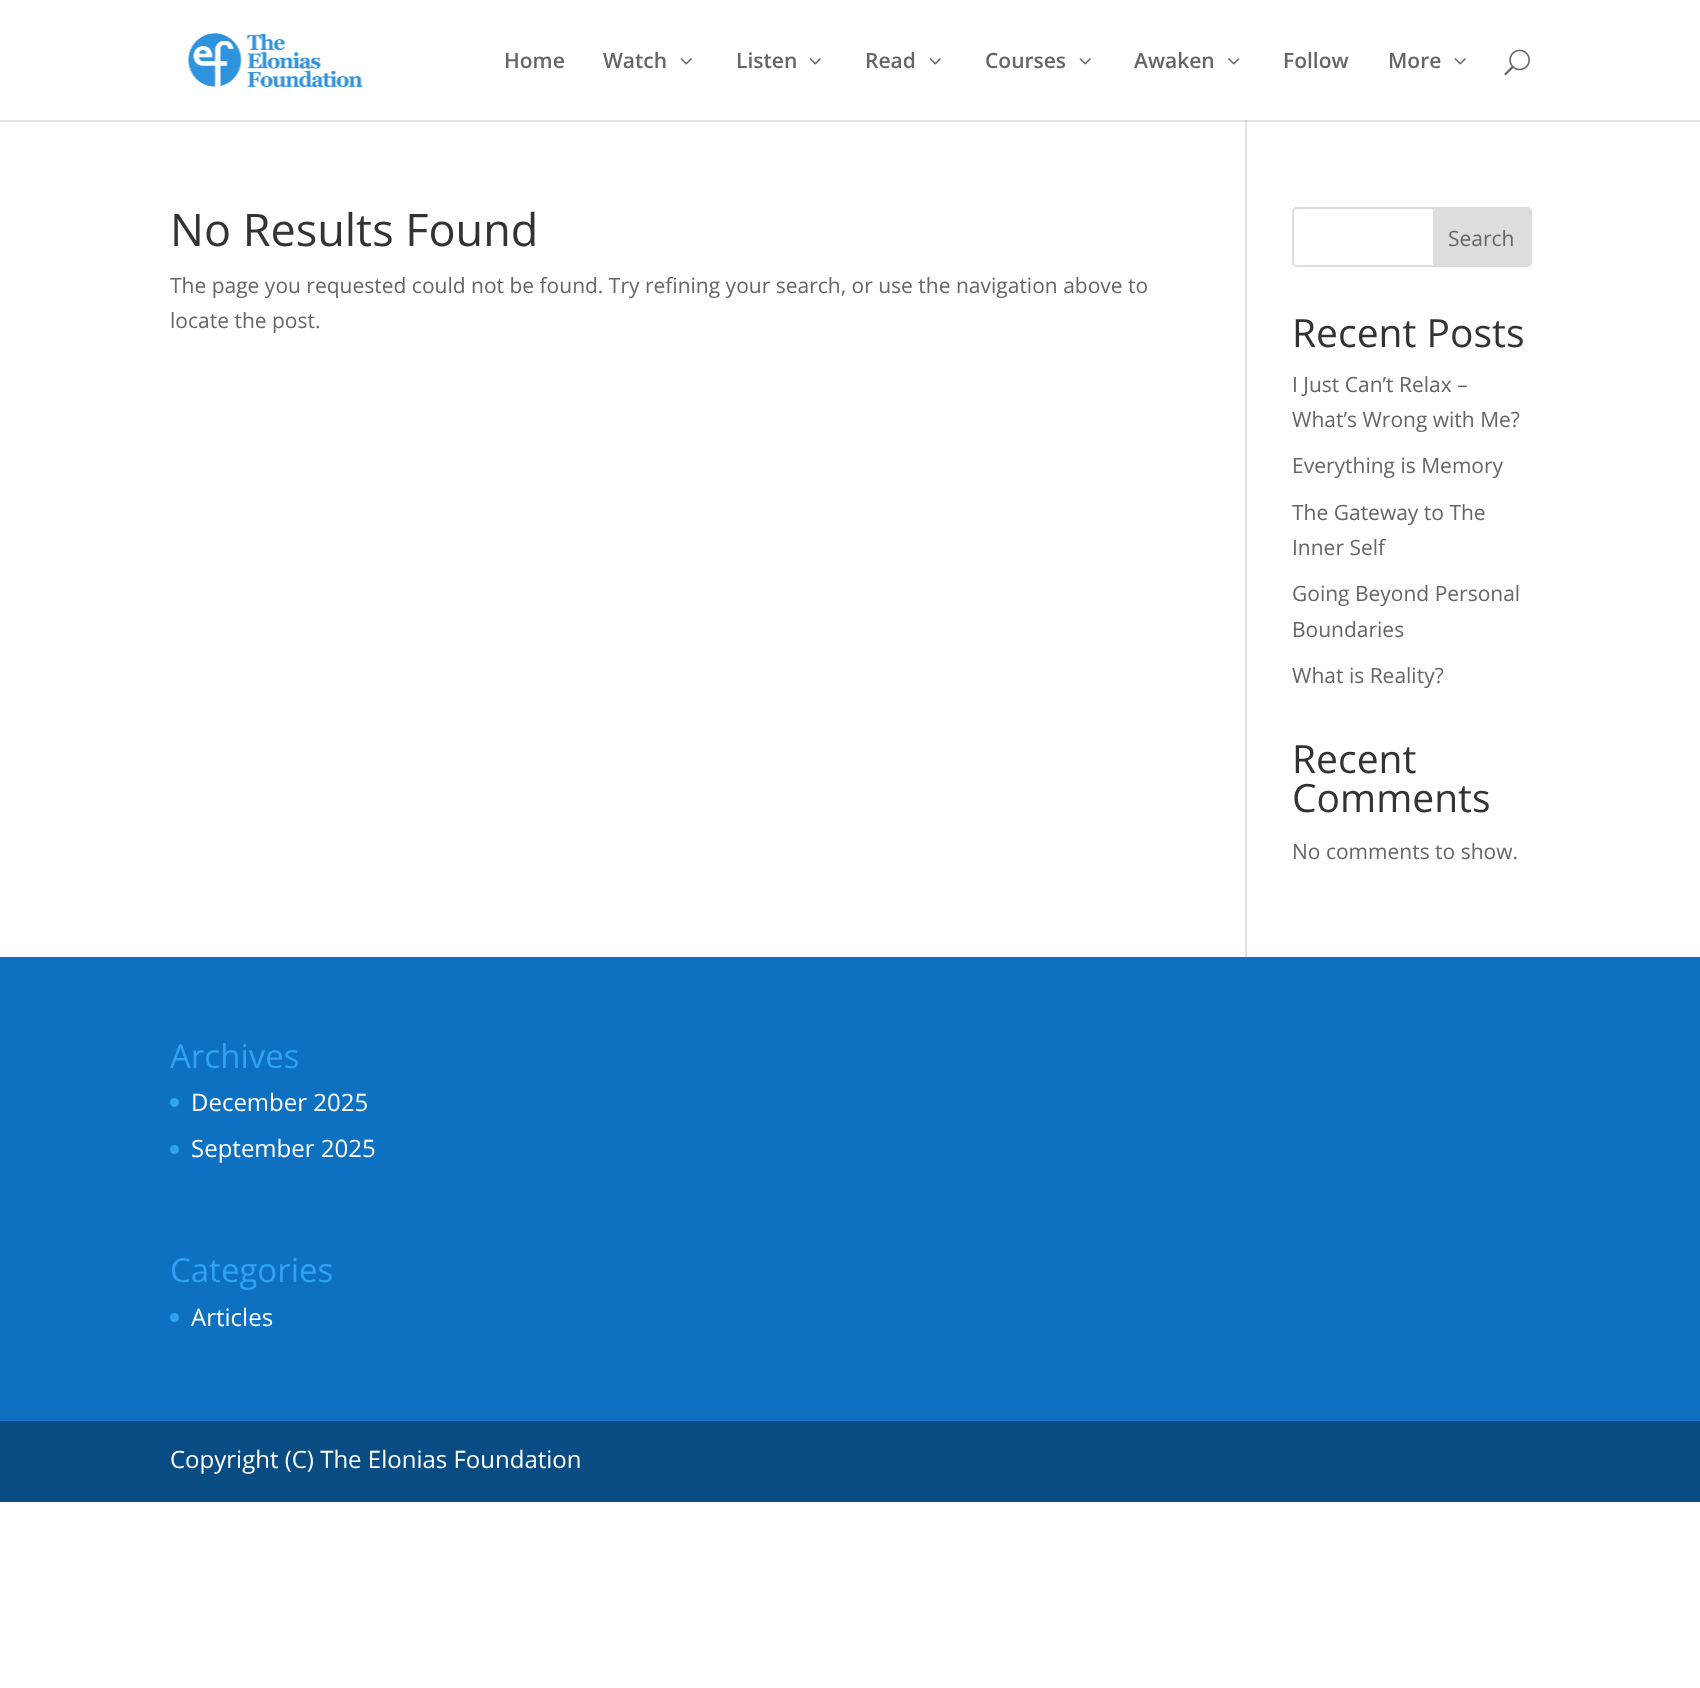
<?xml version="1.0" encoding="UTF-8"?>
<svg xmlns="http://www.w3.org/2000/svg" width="1700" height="1688">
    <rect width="100%" height="100%" fill="#FFFFFF"/>
    <rect x="0" y="120" width="1700" height="2" fill="#E6E6E6"/>
    <image x="188" y="33" width="175" height="54" href="img_01.png"/>
    <text x="504" y="68" font-family="Open Sans" font-size="21" font-weight="600" fill="#666666">Home</text>
    <text x="603" y="68" font-family="Open Sans" font-size="21" font-weight="600" fill="#666666">Watch</text>
    <image x="680" y="58" width="12" height="7" href="img_02.png"/>
    <text x="736" y="68" font-family="Open Sans" font-size="21" font-weight="600" fill="#666666">Listen</text>
    <image x="809" y="58" width="12" height="7" href="img_02.png"/>
    <text x="865" y="68" font-family="Open Sans" font-size="21" font-weight="600" fill="#666666">Read</text>
    <image x="929" y="58" width="12" height="7" href="img_02.png"/>
    <text x="985" y="68" font-family="Open Sans" font-size="21" font-weight="600" fill="#666666">Courses</text>
    <image x="1079" y="58" width="12" height="7" href="img_02.png"/>
    <text x="1134" y="68" font-family="Open Sans" font-size="21" font-weight="600" fill="#666666">Awaken</text>
    <image x="1228" y="58" width="12" height="7" href="img_03.png"/>
    <text x="1283" y="68" font-family="Open Sans" font-size="21" font-weight="600" fill="#666666">Follow</text>
    <text x="1388" y="68" font-family="Open Sans" font-size="21" font-weight="600" fill="#666666">More</text>
    <image x="1454" y="58" width="12" height="7" href="img_02.png"/>
    <image x="1504" y="49" width="26" height="27" href="img_04.png"/>
    <rect x="1245" y="120" width="2" height="837" fill="#E2E2E2"/>
    <rect x="1245" y="120" width="2" height="2" fill="#CBCBCB"/>
    <text x="170" y="246" font-family="Open Sans" font-size="45" fill="#333333">No Results Found</text>
    <text font-family="Open Sans" font-size="21" fill="#666666">
        <tspan x="170" y="293">The page you requested could not be found. Try refining your search, or use the navigation above to</tspan>
        <tspan x="170" y="328">locate the post.</tspan>
    </text>
    <rect x="1293" y="208" width="238" height="58" rx="4" fill="none" stroke="#DDDDDD" stroke-width="2"/>
    <path d="M 1434 208 H 1527 C 1529 208 1531 210 1531 212 V 262 C 1531 264 1529 266 1527 266 H 1434 Z" fill="#DDDDDD" stroke="#DDDDDD" stroke-width="2"/>
    <text x="1448" y="246" font-family="Open Sans" font-size="21" fill="#666666">Search</text>
    <text x="1292" y="347" font-family="Open Sans" font-size="39" fill="#333333">Recent Posts</text>
    <text font-family="Open Sans" font-size="21" fill="#666666">
        <tspan x="1292" y="392">I Just Can’t Relax –</tspan>
        <tspan x="1292" y="427">What’s Wrong with Me?</tspan>
    </text>
    <text x="1292" y="473" font-family="Open Sans" font-size="21" fill="#666666">Everything is Memory</text>
    <text font-family="Open Sans" font-size="21" fill="#666666">
        <tspan x="1292" y="520">The Gateway to The</tspan>
        <tspan x="1292" y="555">Inner Self</tspan>
    </text>
    <text font-family="Open Sans" font-size="21" fill="#666666">
        <tspan x="1292" y="601">Going Beyond Personal</tspan>
        <tspan x="1292" y="637">Boundaries</tspan>
    </text>
    <text x="1292" y="683" font-family="Open Sans" font-size="21" fill="#666666">What is Reality?</text>
    <text font-family="Open Sans" font-size="39" fill="#333333">
        <tspan x="1292" y="773">Recent</tspan>
        <tspan x="1292" y="812">Comments</tspan>
    </text>
    <text x="1292" y="859" font-family="Open Sans" font-size="21" fill="#666666">No comments to show.</text>
    <rect x="0" y="957" width="1700" height="464" fill="#0D70C1"/>
    <text x="170" y="1068" font-family="Open Sans" font-size="33" fill="#2EA3F2">Archives</text>
    <circle cx="174.5" cy="1102.5" r="4.5" fill="#2EA3F2"/>
    <text x="191" y="1111" font-family="Open Sans" font-size="24" fill="#FFFFFF">December 2025</text>
    <circle cx="174.5" cy="1149.5" r="4.5" fill="#2EA3F2"/>
    <text x="191" y="1157" font-family="Open Sans" font-size="24" fill="#FFFFFF">September 2025</text>
    <text x="170" y="1282" font-family="Open Sans" font-size="33" fill="#2EA3F2">Categories</text>
    <circle cx="174.5" cy="1317.5" r="4.5" fill="#2EA3F2"/>
    <text x="191" y="1326" font-family="Open Sans" font-size="24" fill="#FFFFFF">Articles</text>
    <rect x="0" y="1421" width="1700" height="81" fill="#094C83"/>
    <text x="170" y="1468" font-family="Open Sans" font-size="24" fill="#FFFFFF">Copyright (C) The Elonias Foundation</text>
</svg>
